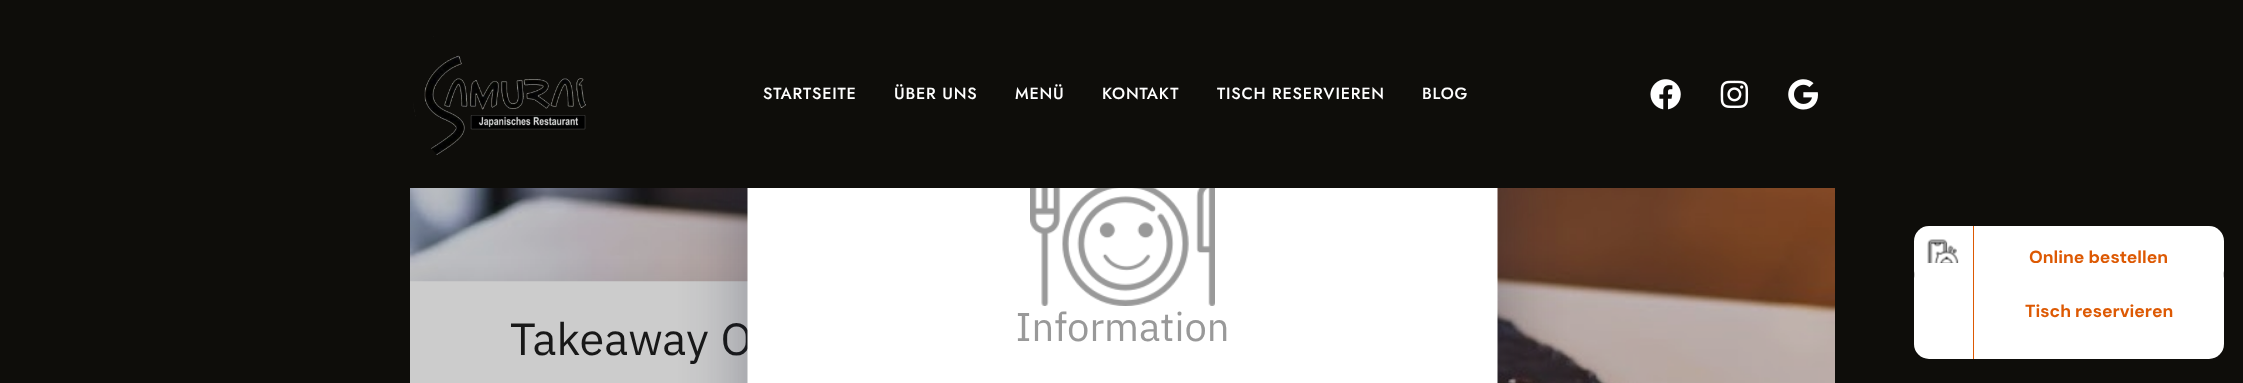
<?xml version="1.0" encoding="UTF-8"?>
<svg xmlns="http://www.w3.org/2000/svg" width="2243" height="383">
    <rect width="100%" height="100%" fill="#0E0D0A"/>
    <image x="413" y="36" width="173" height="119" href="img_01.png"/>
    <text x="763" y="99" font-family="Jost" font-size="16.25" font-weight="500" letter-spacing="0.8" fill="#FFFFFF">STARTSEITE</text>
    <text x="894" y="99" font-family="Jost" font-size="16.25" font-weight="500" letter-spacing="0.8" fill="#FFFFFF">ÜBER UNS</text>
    <text x="1015" y="99" font-family="Jost" font-size="16.25" font-weight="500" letter-spacing="0.8" fill="#FFFFFF">MENÜ</text>
    <text x="1102" y="99" font-family="Jost" font-size="16.25" font-weight="500" letter-spacing="0.8" fill="#FFFFFF">KONTAKT</text>
    <text x="1217" y="99" font-family="Jost" font-size="16.25" font-weight="500" letter-spacing="0.8" fill="#FFFFFF">TISCH RESERVIEREN</text>
    <text x="1422" y="99" font-family="Jost" font-size="16.25" font-weight="500" letter-spacing="0.8" fill="#FFFFFF">BLOG</text>
    <image x="1650" y="79" width="31" height="31" href="img_02.png"/>
    <image x="1720" y="80" width="29" height="29" href="img_03.png"/>
    <image x="1788" y="79" width="30" height="31" href="img_04.png"/>
    <image x="410" y="188" width="1425" height="195" href="img_05.png"/>
    <rect x="1914" y="226" width="310" height="60" rx="15" fill="#FFFFFF"/>
    <rect x="1973" y="226" width="1" height="37" fill="#DD5903"/>
    <image x="1927" y="239" width="32" height="25" href="img_06.png"/>
    <text x="2029" y="263" font-family="DM Sans" font-size="17.5" font-weight="700" fill="#DD5903">Online bestellen</text>
    <rect x="1914" y="263" width="310" height="96" rx="15" fill="#FFFFFF"/>
    <rect x="1973" y="263" width="1" height="96" fill="#DD5903"/>
    <text x="2025" y="317" font-family="DM Sans" font-size="17.5" font-weight="700" fill="#DD5903">Tisch reservieren</text>
</svg>
